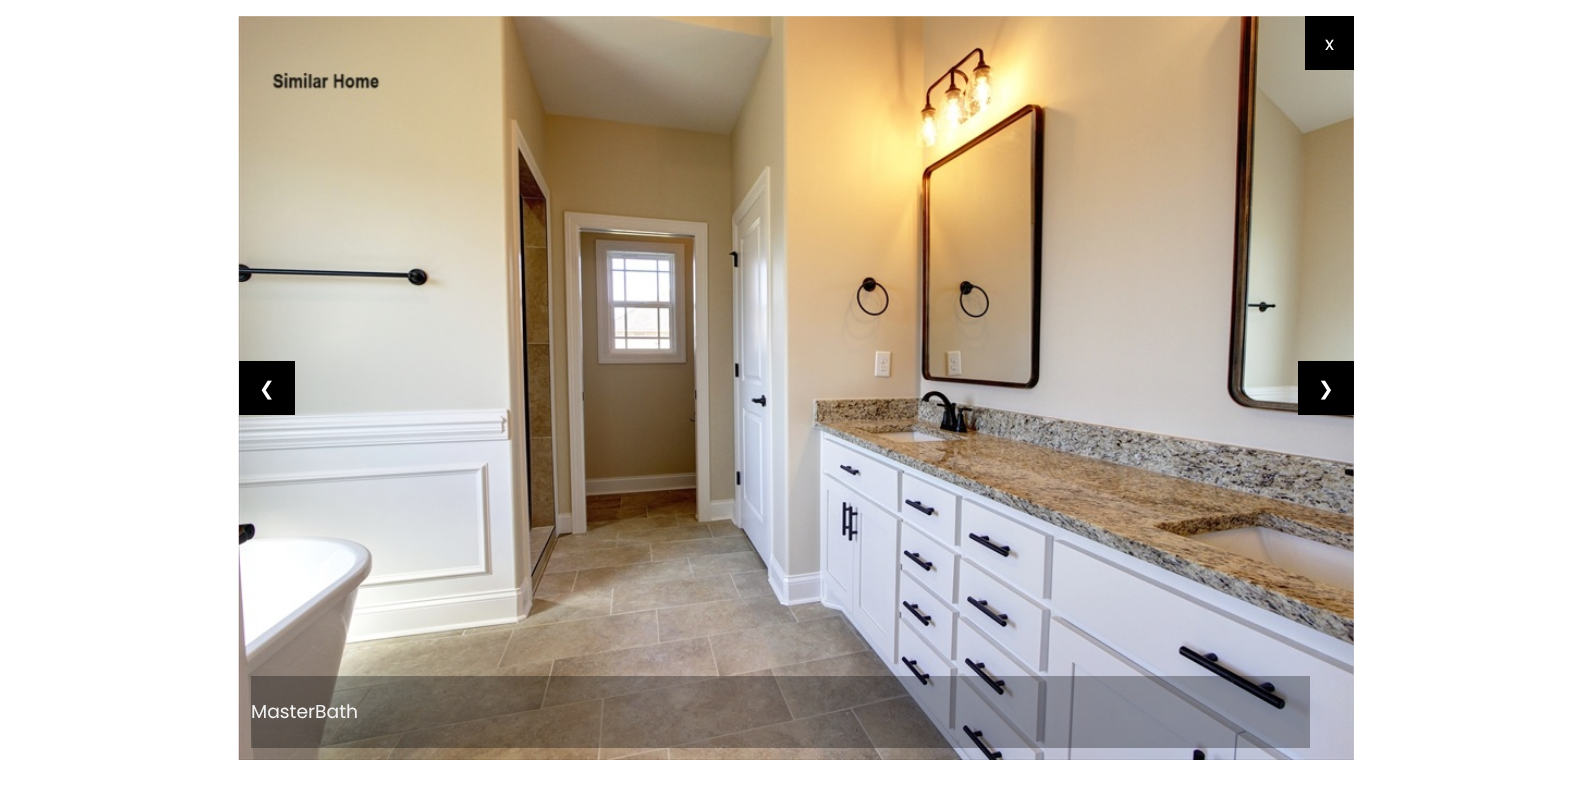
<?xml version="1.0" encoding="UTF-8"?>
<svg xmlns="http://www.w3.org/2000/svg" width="1592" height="807">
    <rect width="100%" height="100%" fill="#FFFFFF"/>
    <image x="238" y="16" width="1116" height="744" href="img_01.png"/>
    <rect x="1305" y="16" width="49" height="54" fill="#000000"/>
    <text x="1325" y="50" font-family="Poppins" font-size="18.75" fill="#FFFFFF">x</text>
    <rect x="239" y="361" width="56" height="54" fill="#000000"/>
    <text x="259" y="395" font-family="DejaVu Sans" font-size="18.75" fill="#FFFFFF">❮</text>
    <rect x="1298" y="361" width="56" height="54" fill="#000000"/>
    <text x="1318" y="395" font-family="DejaVu Sans" font-size="18.75" fill="#FFFFFF">❯</text>
    <rect x="251" y="676" width="1059" height="72" fill="#000000" fill-opacity="0.3"/>
    <text x="251" y="718" font-family="Poppins" font-size="18.75" fill="#F1F1F1">MasterBath</text>
</svg>
